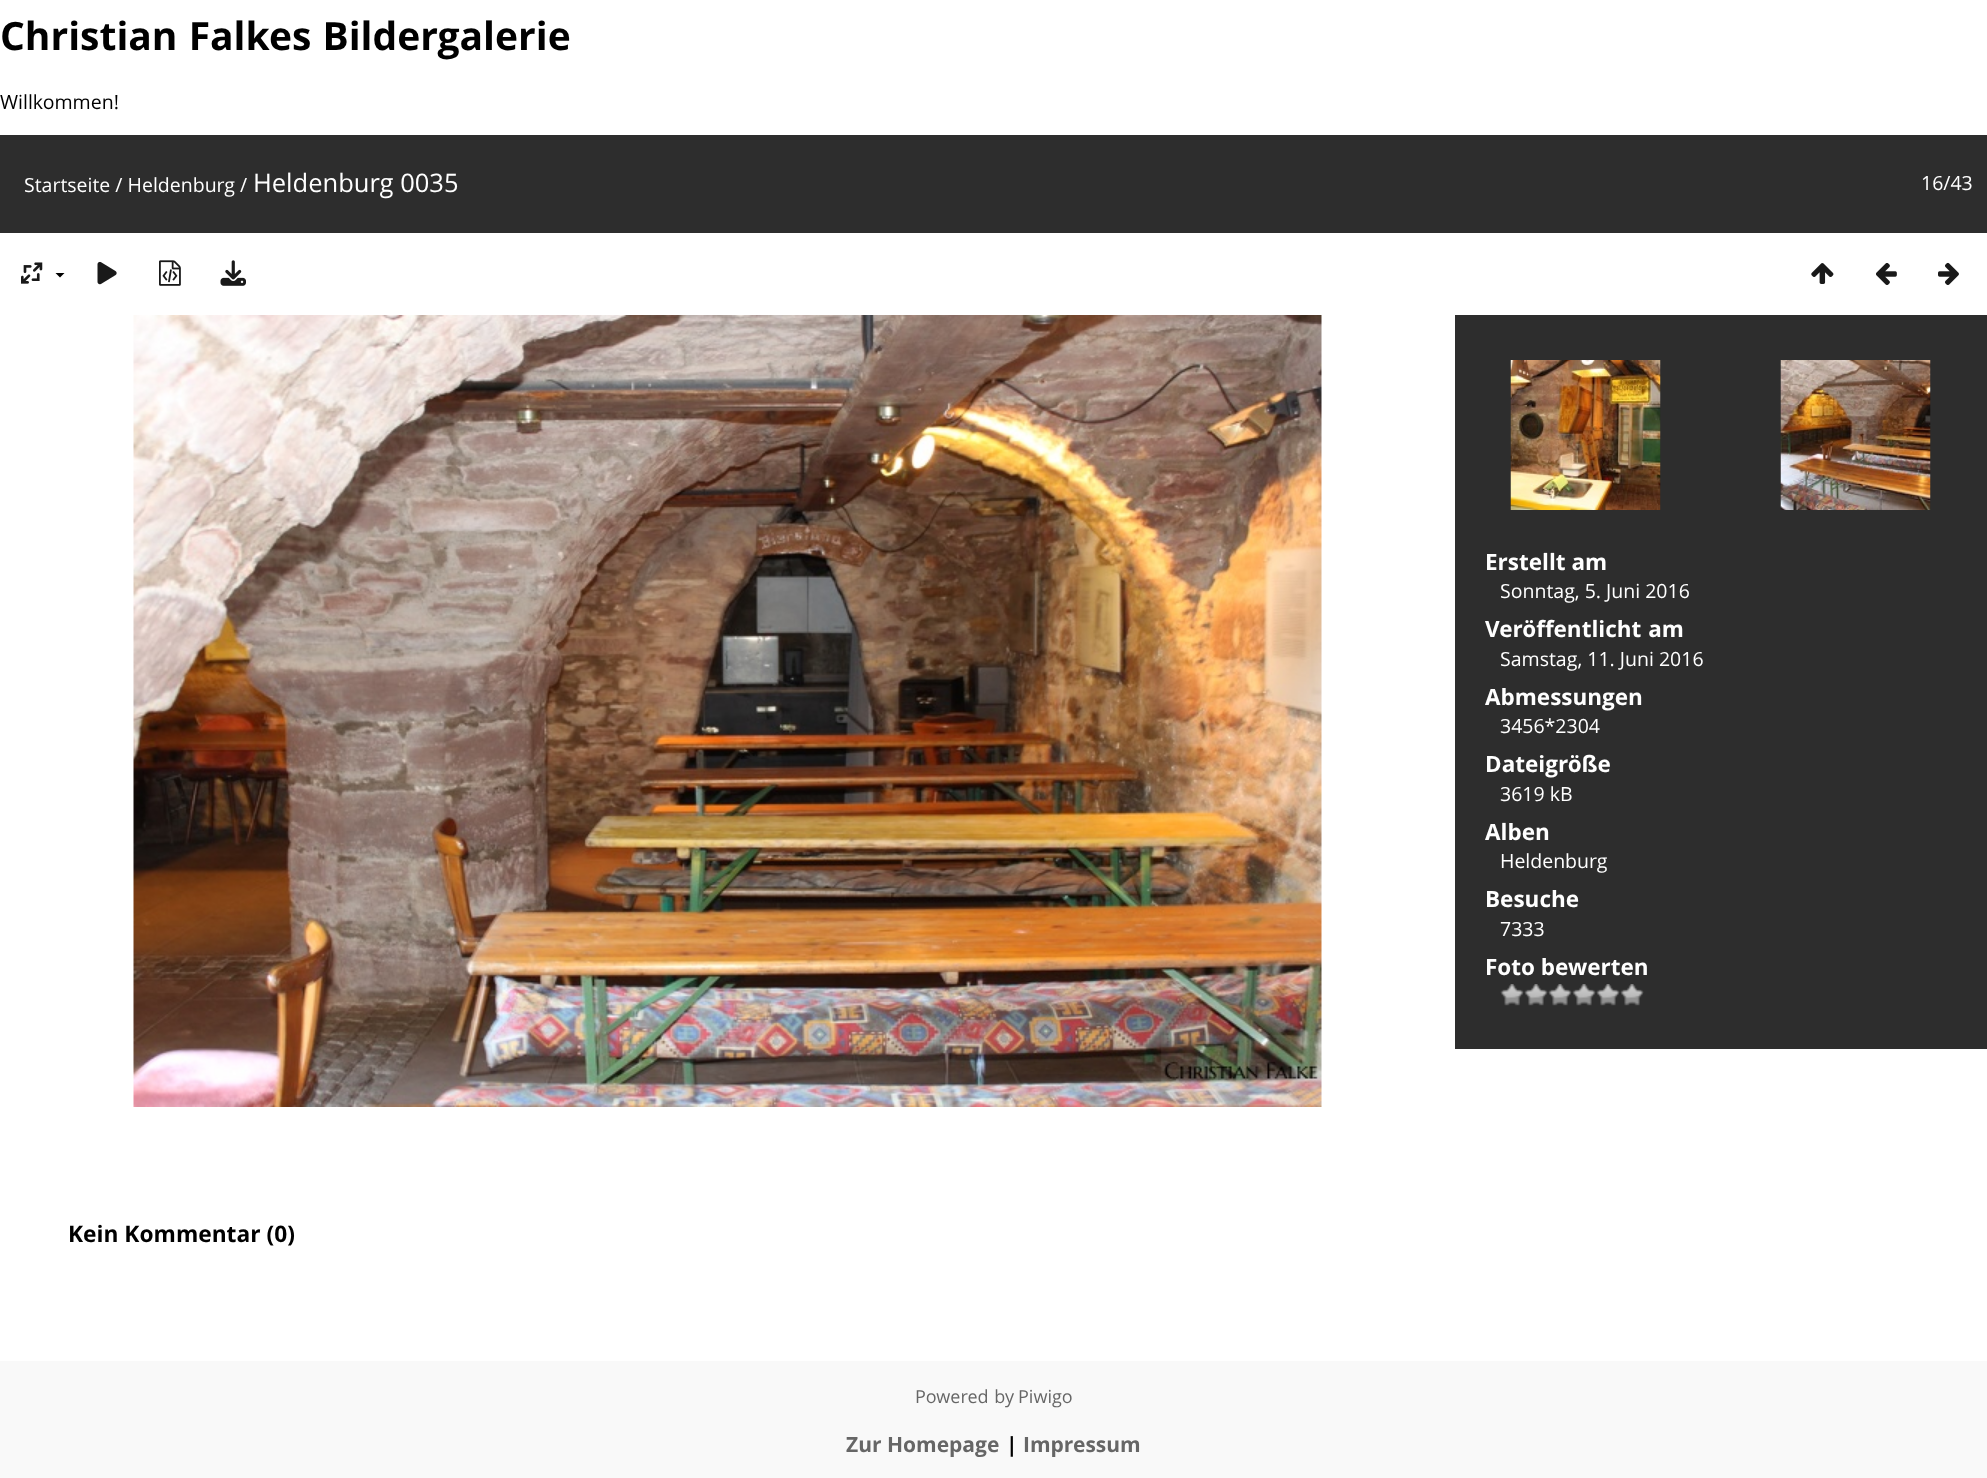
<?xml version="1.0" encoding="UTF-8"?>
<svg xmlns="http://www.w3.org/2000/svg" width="1987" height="1478">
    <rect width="100%" height="100%" fill="#FFFFFF"/>
    <text x="0" y="50" word-spacing="1" font-family="Open Sans" font-size="39" font-weight="700" fill="#000000">Christian Falkes Bildergalerie</text>
    <text x="0" y="109" font-family="Open Sans" font-size="19.5" fill="#000000">Willkommen!</text>
    <rect x="0" y="135" width="1987" height="98" fill="#2D2D2D"/>
    <text x="24" y="192" font-family="Open Sans" font-size="19.5" fill="#FFFFFF">Startseite / Heldenburg /</text>
    <text x="253" y="192" font-family="Open Sans" font-size="25.5" fill="#FFFFFF">Heldenburg 0035</text>
    <text x="1921" y="190" font-family="Open Sans" font-size="19.5" fill="#FFFFFF">16/43</text>
    <image x="21" y="262" width="22" height="22" href="img_01.png"/>
    <path d="M 55.5 273 H 64.5 L 60 277.5 Z" fill="#000000"/>
    <image x="97" y="261" width="20" height="24" href="img_02.png"/>
    <image x="159" y="260" width="22" height="26" href="img_03.png"/>
    <image x="220" y="260" width="26" height="26" href="img_04.png"/>
    <image x="1811" y="263" width="23" height="21" href="img_05.png"/>
    <image x="1876" y="263" width="21" height="22" href="img_06.png"/>
    <image x="1938" y="262" width="21" height="23" href="img_07.png"/>
    <image x="133" y="315" width="1189" height="792" href="img_08.png"/>
    <rect x="1455" y="315" width="532" height="734" fill="#2D2D2D"/>
    <image x="1510" y="360" width="151" height="150" href="img_09.png"/>
    <image x="1780" y="360" width="151" height="150" href="img_10.png"/>
    <text x="1485" y="570" font-family="Open Sans" font-size="22.5" font-weight="700" fill="#FFFFFF">Erstellt am</text>
    <text x="1500" y="598" font-family="Open Sans" font-size="19.5" fill="#FFFFFF">Sonntag, 5. Juni 2016</text>
    <text x="1485" y="637" word-spacing="1" font-family="Open Sans" font-size="22.5" font-weight="700" fill="#FFFFFF">Veröffentlicht am</text>
    <text x="1500" y="666" font-family="Open Sans" font-size="19.5" fill="#FFFFFF">Samstag, 11. Juni 2016</text>
    <text x="1485" y="705" font-family="Open Sans" font-size="22.5" font-weight="700" fill="#FFFFFF">Abmessungen</text>
    <text x="1500" y="733" font-family="Open Sans" font-size="19.5" fill="#FFFFFF">3456*2304</text>
    <text x="1485" y="772" font-family="Open Sans" font-size="22.5" font-weight="700" fill="#FFFFFF">Dateigröße</text>
    <text x="1500" y="801" font-family="Open Sans" font-size="19.5" fill="#FFFFFF">3619 kB</text>
    <text x="1485" y="840" font-family="Open Sans" font-size="22.5" font-weight="700" fill="#FFFFFF">Alben</text>
    <text x="1500" y="868" font-family="Open Sans" font-size="19.5" fill="#FFFFFF">Heldenburg</text>
    <text x="1485" y="907" font-family="Open Sans" font-size="22.5" font-weight="700" fill="#FFFFFF">Besuche</text>
    <text x="1500" y="936" font-family="Open Sans" font-size="19.5" fill="#FFFFFF">7333</text>
    <text x="1485" y="975" font-family="Open Sans" font-size="22.5" font-weight="700" fill="#FFFFFF">Foto bewerten</text>
    <image x="1500" y="984" width="24" height="22" href="img_11.png"/>
    <image x="1524" y="984" width="24" height="22" href="img_12.png"/>
    <image x="1548" y="984" width="24" height="22" href="img_12.png"/>
    <image x="1572" y="984" width="24" height="22" href="img_12.png"/>
    <image x="1596" y="984" width="24" height="22" href="img_12.png"/>
    <image x="1620" y="984" width="24" height="22" href="img_12.png"/>
    <text x="68" y="1242" font-family="Open Sans" font-size="22.75" font-weight="700" fill="#000000">Kein Kommentar (0)</text>
    <rect x="0" y="1361" width="1987" height="117" fill="#F9F9F9"/>
    <text x="915" y="1403" word-spacing="1" font-family="Open Sans" font-size="18" fill="#666666">Powered by</text>
    <text x="1018" y="1403" font-family="Open Sans" font-size="18" fill="#666666">Piwigo</text>
    <text x="846" y="1452" font-family="Open Sans" font-size="21" font-weight="700" fill="#666666">Zur Homepage</text>
    <text x="1006" y="1452" font-family="Open Sans" font-size="21" font-weight="700" fill="#000000">|</text>
    <text x="1023" y="1452" font-family="Open Sans" font-size="21" font-weight="700" fill="#666666">Impressum</text>
</svg>
